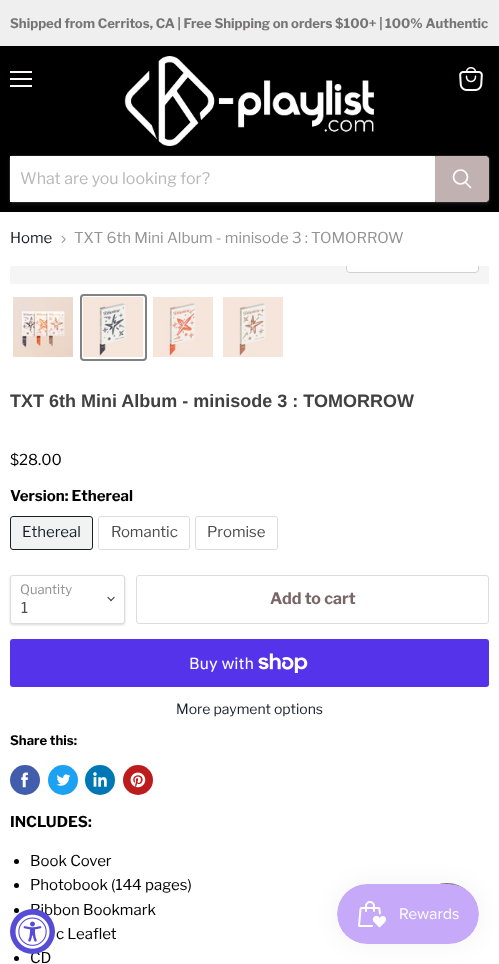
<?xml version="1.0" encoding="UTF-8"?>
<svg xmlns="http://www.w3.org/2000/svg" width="499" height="964">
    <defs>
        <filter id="blur1" x="-50%" y="-200%" width="200%" height="500%"><feGaussianBlur stdDeviation="1.5"/></filter>
        <clipPath id="clip1"><rect x="10" y="266" width="479" height="18"/></clipPath>
        <filter id="blur2" x="-50%" y="-200%" width="200%" height="500%"><feGaussianBlur stdDeviation="1"/></filter>
        <filter id="blur3" x="-50%" y="-200%" width="200%" height="500%"><feGaussianBlur stdDeviation="12.5"/></filter>
    </defs>
    <rect width="100%" height="100%" fill="#FFFFFF"/>
    <rect x="0" y="0" width="499" height="46" fill="#EFEFEF"/>
    <text x="10" y="28" font-family="Libre Franklin" font-size="13.1" font-weight="700" fill="#767474">Shipped from Cerritos, CA | Free Shipping on orders $100+ | 100% Authentic</text>
    <rect x="0" y="46" width="499" height="166" fill="#000000"/>
    <rect x="10" y="71" width="22" height="2" fill="#FFFAFA"/>
    <rect x="10" y="78" width="22" height="2" fill="#FFFAFA"/>
    <rect x="10" y="85" width="22" height="2" fill="#FFFAFA"/>
    <image x="459" y="67" width="24" height="24" href="img_01.png"/>
    <image x="124" y="56" width="250" height="90" href="img_02.png"/>
    <rect x="9" y="157" width="481" height="48" rx="4" fill="#808080" fill-opacity="0.11" filter="url(#blur1)"/>
    <rect x="9.5" y="155.5" width="480" height="47" rx="3.5" fill="none" stroke="#808080" stroke-opacity="0.2"/>
    <rect x="10" y="156" width="425" height="46" fill="#FFFFFF"/>
    <text x="20" y="184" font-family="Libre Franklin" font-size="16" fill="#B8B8B8">What are you looking for?</text>
    <path d="M 435.5 156.5 H 486 C 487.5 156.5 488.5 157.5 488.5 159 V 199 C 488.5 200.5 487.5 201.5 486 201.5 H 435.5 Z" fill="#C1B1B1" stroke="#C1B1B1"/>
    <path d="M 470.5 187.5 L 465.5 182.5" fill="none" stroke="#FFFFFF" stroke-width="1.7" stroke-linecap="round"/>
    <circle cx="460.5" cy="177" r="7" fill="none" stroke="#FFFFFF" stroke-width="1.7"/>
    <text x="10" y="243" font-family="Libre Franklin" font-size="15" fill="#171F2B">Home</text>
    <image x="61" y="235" width="5" height="8" href="img_03.png"/>
    <text x="74" y="243" font-family="Libre Franklin" font-size="15" fill="#949494">TXT 6th Mini Album - minisode 3 : TOMORROW</text>
    <rect x="10" y="266" width="479" height="18" fill="#F5F5F5"/>
    <g clip-path="url(#clip1)">
        <rect x="346.5" y="244.5" width="132" height="28" rx="3.5" fill="none" stroke="#D0D0D0"/>
    </g>
    <path d="M 347 266 H 478 V 269 C 478 270.5 476.5 272 475 272 H 350 C 348.5 272 347 270.5 347 269 Z" fill="#FFFFFF" fill-opacity="0.9"/>
    <image x="13" y="297" width="60" height="60" href="img_04.png"/>
    <rect x="81" y="295" width="65" height="65" rx="3" fill="none" stroke="#818181" stroke-width="2"/>
    <image x="83" y="297" width="60" height="60" href="img_05.png"/>
    <image x="153" y="297" width="60" height="60" href="img_06.png"/>
    <image x="223" y="297" width="60" height="60" href="img_07.png"/>
    <text x="10" y="407" font-family="Arimo" font-size="18" font-weight="700" fill="#414141">TXT 6th Mini Album - minisode 3 : TOMORROW</text>
    <text x="10" y="465" font-family="Libre Franklin" font-size="15" fill="#000000">$28.00</text>
    <text x="10" y="501" font-family="Libre Franklin" font-size="15" font-weight="700" fill="#000000">Version: Ethereal</text>
    <rect x="10.5" y="516.5" width="82" height="33" rx="2.5" fill="#F1F2F2" stroke="#171F2B"/>
    <text x="22" y="537" font-family="Libre Franklin" font-size="15" fill="#171F2B">Ethereal</text>
    <rect x="98.5" y="516.5" width="91" height="33" rx="2.5" fill="none" stroke="#DDDDDD"/>
    <text x="111" y="537" font-family="Libre Franklin" font-size="15" fill="#4D4D4D">Romantic</text>
    <rect x="195.5" y="516.5" width="82" height="33" rx="2.5" fill="none" stroke="#DDDDDD"/>
    <text x="207" y="537" font-family="Libre Franklin" font-size="15" fill="#4D4D4D">Promise</text>
    <rect x="10" y="576" width="115" height="49" rx="3" fill="#000000" fill-opacity="0.15" filter="url(#blur2)"/>
    <rect x="10.5" y="575.5" width="114" height="48" rx="2.5" fill="#FFFFFF" stroke="#DDDDDD"/>
    <text x="20" y="594" font-family="Libre Franklin" font-size="13" fill="#949494">Quantity</text>
    <image x="107" y="596" width="8" height="6" href="img_08.png"/>
    <text x="21" y="613" font-family="Libre Franklin" font-size="15" fill="#4D4D4D">1</text>
    <rect x="136.5" y="575.5" width="352" height="48" rx="2.5" fill="none" stroke="#DDDDDD"/>
    <text x="270" y="604" font-family="Libre Franklin" font-size="16" font-weight="700" fill="#796767">Add to cart</text>
    <rect x="10" y="639" width="479" height="48" rx="3" fill="#5433EB"/>
    <text x="189" y="669" font-family="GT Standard" font-size="16" fill="#FFFFFF">Buy with</text>
    <image x="258" y="653" width="50" height="20" href="img_09.png"/>
    <text x="176" y="714" font-family="Libre Franklin" font-size="14" fill="#171F2B">More payment options</text>
    <text x="10" y="745" font-family="Libre Franklin" font-size="13.1" font-weight="700" fill="#000000">Share this:</text>
    <circle cx="25" cy="780" r="15" fill="#425DAB"/>
    <image x="21" y="772" width="7" height="16" href="img_10.png"/>
    <circle cx="63" cy="780" r="15" fill="#1DA1F2"/>
    <image x="56" y="774" width="15" height="12" href="img_11.png"/>
    <circle cx="100" cy="780" r="15" fill="#0077B5"/>
    <image x="93" y="772" width="14" height="15" href="img_12.png"/>
    <circle cx="138" cy="780" r="15" fill="#BD1C1C"/>
    <image x="130" y="772" width="16" height="16" href="img_13.png"/>
    <text x="10" y="827" font-family="Libre Franklin" font-size="15" font-weight="700" fill="#000000">INCLUDES:</text>
    <circle cx="16.5" cy="861.5" r="2.5" fill="#000000"/>
    <text x="30" y="866" font-family="Libre Franklin" font-size="15" fill="#000000">Book Cover</text>
    <circle cx="16.5" cy="885.5" r="2.5" fill="#000000"/>
    <text x="30" y="890" font-family="Libre Franklin" font-size="15" fill="#000000">Photobook (144 pages)</text>
    <circle cx="16.5" cy="910.5" r="2.5" fill="#000000"/>
    <text x="30" y="915" font-family="Libre Franklin" font-size="15" fill="#000000">Ribbon Bookmark</text>
    <text x="56" y="939" font-family="Libre Franklin" font-size="15" fill="#000000">c Leaflet</text>
    <circle cx="16.5" cy="958.5" r="2.5" fill="#000000"/>
    <text x="30" y="963" font-family="Libre Franklin" font-size="15" fill="#000000">CD</text>
    <circle cx="447" cy="913" r="30" fill="#7E7272"/>
    <rect x="337" y="884" width="142" height="60" rx="30" fill="#000000" fill-opacity="0.05" filter="url(#blur3)"/>
    <image x="337" y="884" width="142" height="60" href="img_14.png"/>
    <circle cx="32.5" cy="931.5" r="22.5" fill="#574CD5"/>
    <image x="15" y="914" width="35" height="35" href="img_15.png"/>
</svg>
